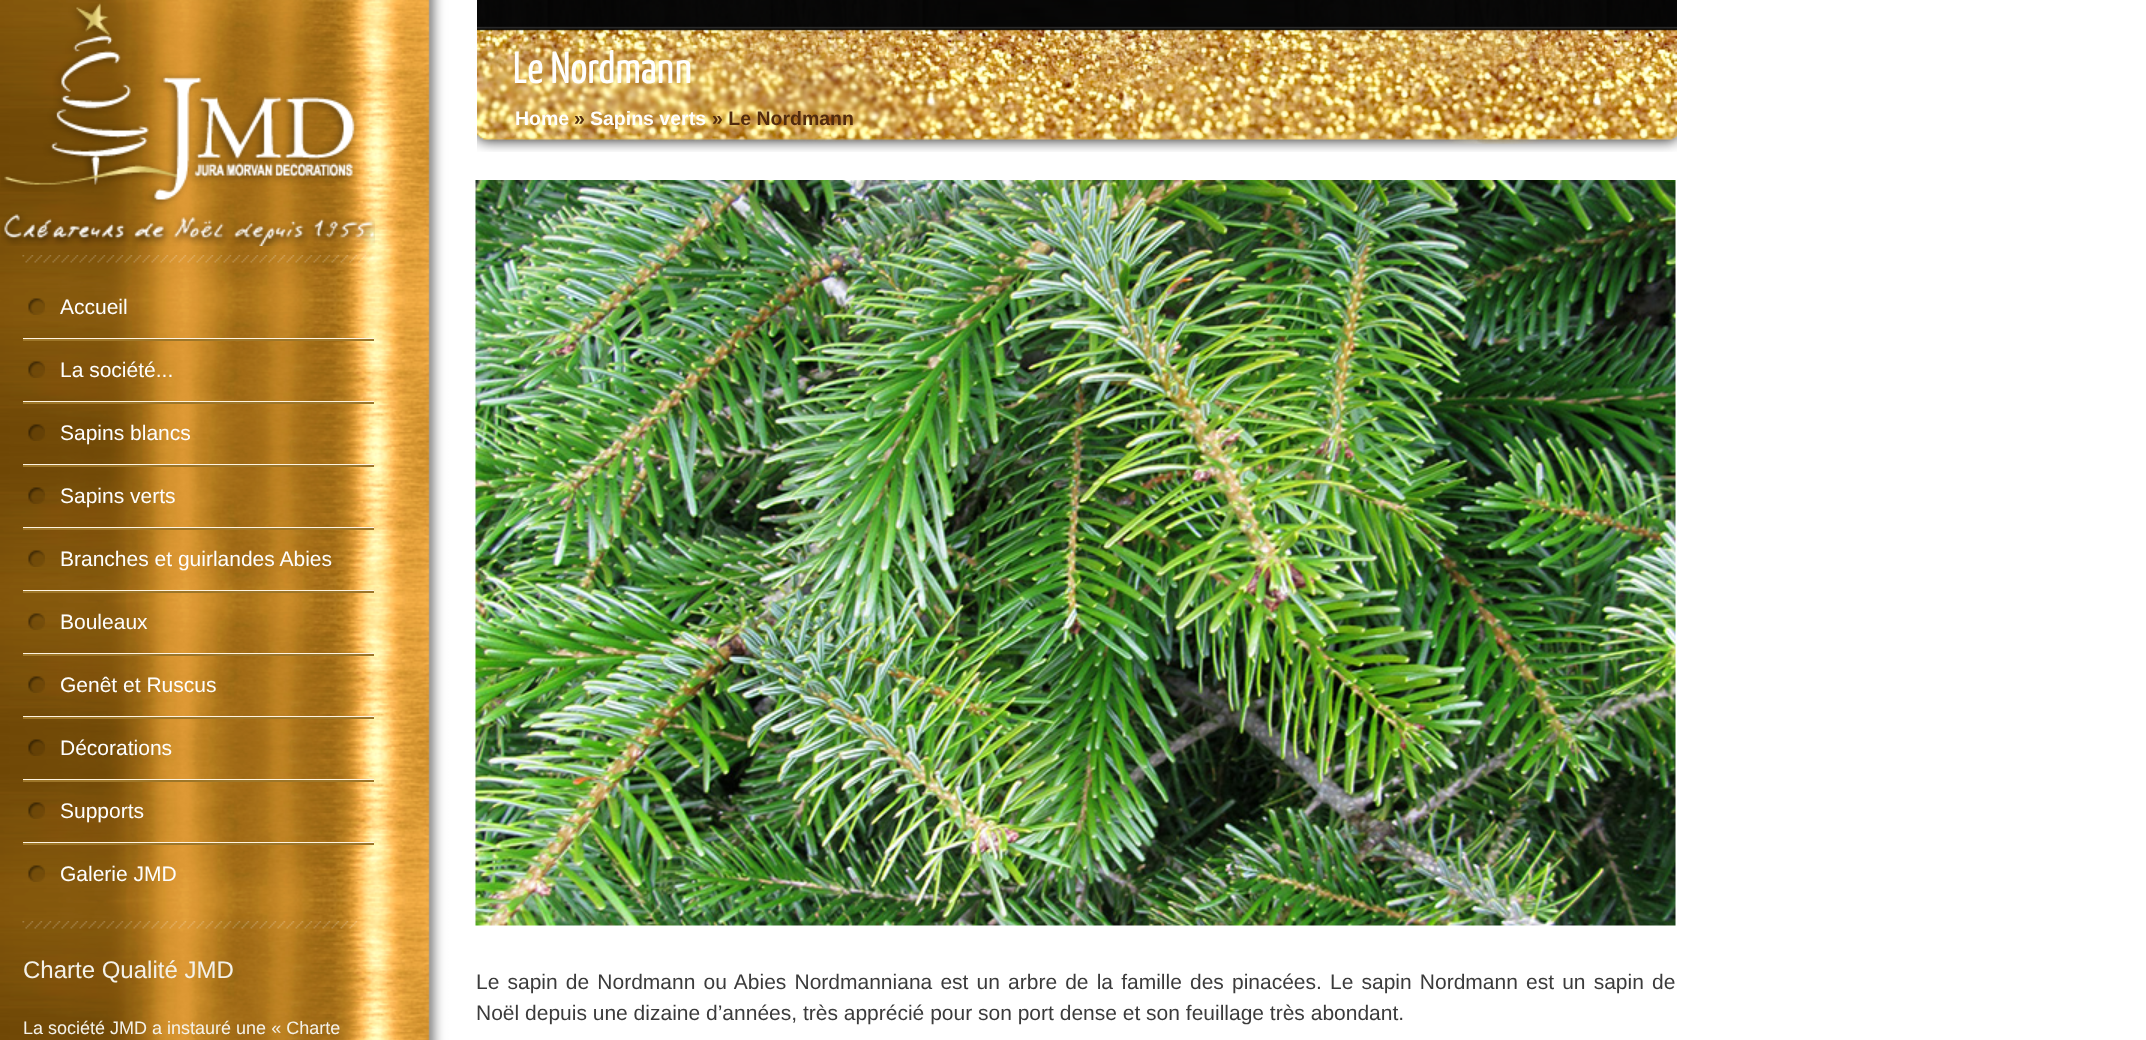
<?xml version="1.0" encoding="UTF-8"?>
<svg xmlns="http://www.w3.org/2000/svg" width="2146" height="1040">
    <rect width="100%" height="100%" fill="#FFFFFF"/>
    <image x="0" y="0" width="691" height="1040" href="img_01.png"/>
    <image x="1" y="3" width="374" height="243" href="img_02.png"/>
    <image x="22" y="255" width="352" height="8" href="img_03.png"/>
    <image x="28" y="298" width="17" height="17" href="img_04.png"/>
    <rect x="23" y="338" width="351" height="1" fill="#FFF4E1"/>
    <text x="60" y="314" font-family="Liberation Sans" font-size="21" fill="#FEFEFE">Accueil</text>
    <image x="28" y="361" width="17" height="17" href="img_05.png"/>
    <rect x="23" y="339" width="351" height="2" fill="#9D7629"/>
    <rect x="23" y="401" width="351" height="1" fill="#FFF4E1"/>
    <text x="60" y="377" font-family="Liberation Sans" font-size="21" fill="#FEFEFE">La société...</text>
    <image x="28" y="424" width="17" height="17" href="img_06.png"/>
    <rect x="23" y="402" width="351" height="2" fill="#9D7629"/>
    <rect x="23" y="464" width="351" height="1" fill="#FFF4E1"/>
    <text x="60" y="440" font-family="Liberation Sans" font-size="21" fill="#FEFEFE">Sapins blancs</text>
    <image x="28" y="487" width="17" height="17" href="img_07.png"/>
    <rect x="23" y="465" width="351" height="2" fill="#9D7629"/>
    <rect x="23" y="527" width="351" height="1" fill="#FFF4E1"/>
    <text x="60" y="503" font-family="Liberation Sans" font-size="21" fill="#FEFEFE">Sapins verts</text>
    <image x="28" y="550" width="17" height="17" href="img_08.png"/>
    <rect x="23" y="528" width="351" height="2" fill="#9D7629"/>
    <rect x="23" y="590" width="351" height="1" fill="#FFF4E1"/>
    <text x="60" y="566" font-family="Liberation Sans" font-size="21" fill="#FEFEFE">Branches et guirlandes Abies</text>
    <image x="28" y="613" width="17" height="17" href="img_09.png"/>
    <rect x="23" y="591" width="351" height="2" fill="#9D7629"/>
    <rect x="23" y="653" width="351" height="1" fill="#FFF4E1"/>
    <text x="60" y="629" font-family="Liberation Sans" font-size="21" fill="#FEFEFE">Bouleaux</text>
    <image x="28" y="676" width="17" height="17" href="img_10.png"/>
    <rect x="23" y="654" width="351" height="2" fill="#9D7629"/>
    <rect x="23" y="716" width="351" height="1" fill="#FFF4E1"/>
    <text x="60" y="692" font-family="Liberation Sans" font-size="21" fill="#FEFEFE">Genêt et Ruscus</text>
    <image x="28" y="739" width="17" height="17" href="img_11.png"/>
    <rect x="23" y="717" width="351" height="2" fill="#9D7629"/>
    <rect x="23" y="779" width="351" height="1" fill="#FFF4E1"/>
    <text x="60" y="755" font-family="Liberation Sans" font-size="21" fill="#FEFEFE">Décorations</text>
    <image x="28" y="802" width="17" height="17" href="img_12.png"/>
    <rect x="23" y="780" width="351" height="2" fill="#9D7629"/>
    <rect x="23" y="842" width="351" height="1" fill="#FFF4E1"/>
    <text x="60" y="818" font-family="Liberation Sans" font-size="21" fill="#FEFEFE">Supports</text>
    <image x="28" y="865" width="17" height="17" href="img_13.png"/>
    <rect x="23" y="843" width="351" height="2" fill="#9D7629"/>
    <text x="60" y="881" font-family="Liberation Sans" font-size="21" fill="#FEFEFE">Galerie JMD</text>
    <image x="22" y="921" width="336" height="8" href="img_14.png"/>
    <text x="23" y="978" font-family="Liberation Sans" font-size="24" fill="#F4F2EA">Charte Qualité JMD</text>
    <text x="23" y="1034" font-family="Liberation Sans" font-size="18" fill="#F4F2EA">La société JMD a instauré une « Charte</text>
    <image x="477" y="0" width="1200" height="152" href="img_15.png"/>
    <text x="513" y="83" font-family="Yanone Kaffeesatz" font-size="45" font-weight="200" fill="#FEFEFE">Le Nordmann</text>
    <text x="515" y="125" font-family="Liberation Sans" font-size="19.5" font-weight="700" fill="#FEFEFE">Home</text>
    <text x="574" y="125" font-family="Liberation Sans" font-size="19.5" font-weight="700" fill="#512A0E">»</text>
    <text x="590" y="125" font-family="Liberation Sans" font-size="19.5" font-weight="700" fill="#FEFEFE">Sapins verts</text>
    <text x="712" y="125" font-family="Liberation Sans" font-size="19.5" font-weight="700" fill="#512A0E">» Le Nordmann</text>
    <image x="475" y="180" width="1201" height="746" href="img_16.png"/>
    <text font-family="Liberation Sans" font-size="21" fill="#3B3B3B">
        <tspan x="476" y="989" word-spacing="2.3">Le sapin de Nordmann ou Abies Nordmanniana est un arbre de la famille des pinacées. Le sapin Nordmann est un sapin de</tspan>
        <tspan x="476" y="1020">Noël depuis une dizaine d’années, très apprécié pour son port dense et son feuillage très abondant.</tspan>
    </text>
</svg>
